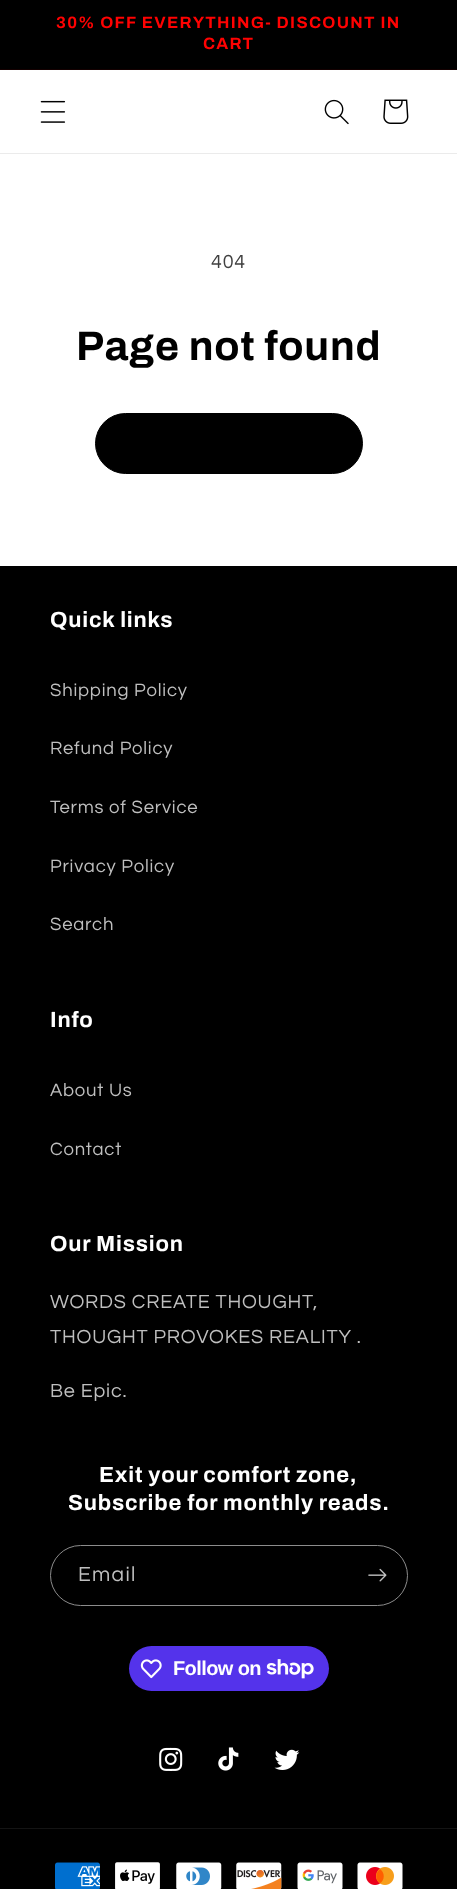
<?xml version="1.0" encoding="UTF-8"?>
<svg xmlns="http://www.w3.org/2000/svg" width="457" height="1889">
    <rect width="100%" height="100%" fill="#FFFFFF"/>
    <rect x="0" y="0" width="457" height="69" fill="#000000"/>
    <rect x="0" y="69" width="457" height="1" fill="#140000"/>
    <text x="56" y="28" font-family="Archivo" font-size="16.5" font-weight="700" letter-spacing="1.3" fill="#FF0202">30% OFF EVERYTHING- DISCOUNT IN</text>
    <text x="203" y="49" font-family="Archivo" font-size="16.5" font-weight="700" letter-spacing="1.3" fill="#FF0202">CART</text>
    <rect x="0" y="153" width="457" height="1" fill="#EBEBEB"/>
    <image x="40" y="100" width="26" height="23" href="img_01.png"/>
    <image x="324" y="99" width="25" height="26" href="img_02.png"/>
    <image x="383" y="99" width="26" height="25" href="img_03.png"/>
    <text x="211" y="268" font-family="Questrial" font-size="19.75" letter-spacing="0.8" fill="#404040">404</text>
    <text x="76" y="360" font-family="Archivo" font-size="41.25" font-weight="700" letter-spacing="0.8" fill="#000000">Page not found</text>
    <rect x="95.5" y="413.5" width="267" height="60" rx="30" fill="#000000" stroke="#000000"/>
    <rect x="0" y="566" width="457" height="1323" fill="#000000"/>
    <text x="50" y="627" font-family="Archivo" font-size="22" font-weight="700" letter-spacing="0.8" fill="#FFFFFF">Quick links</text>
    <text x="50" y="696" font-family="Questrial" font-size="18.5" letter-spacing="0.8" fill="#BFBFBF">Shipping Policy</text>
    <text x="50" y="754" font-family="Questrial" font-size="18.5" letter-spacing="0.8" fill="#BFBFBF">Refund Policy</text>
    <text x="50" y="813" font-family="Questrial" font-size="18.5" letter-spacing="0.8" fill="#BFBFBF">Terms of Service</text>
    <text x="50" y="872" font-family="Questrial" font-size="18.5" letter-spacing="0.8" fill="#BFBFBF">Privacy Policy</text>
    <text x="50" y="930" font-family="Questrial" font-size="18.5" letter-spacing="0.8" fill="#BFBFBF">Search</text>
    <text x="50" y="1027" font-family="Archivo" font-size="22" font-weight="700" letter-spacing="0.8" fill="#FFFFFF">Info</text>
    <text x="50" y="1096" font-family="Questrial" font-size="18.5" letter-spacing="0.8" fill="#BFBFBF">About Us</text>
    <text x="50" y="1155" font-family="Questrial" font-size="18.5" letter-spacing="0.8" fill="#BFBFBF">Contact</text>
    <text x="50" y="1251" font-family="Archivo" font-size="22" font-weight="700" letter-spacing="0.8" fill="#FFFFFF">Our Mission</text>
    <text font-family="Questrial" font-size="19.75" letter-spacing="0.8" fill="#BFBFBF">
        <tspan x="50" y="1308">WORDS CREATE THOUGHT,</tspan>
        <tspan x="50" y="1343">THOUGHT PROVOKES REALITY .</tspan>
    </text>
    <text x="50" y="1397" font-family="Questrial" font-size="19.75" letter-spacing="0.8" fill="#BFBFBF">Be Epic.</text>
    <text x="99" y="1482" font-family="Archivo" font-size="22" font-weight="700" letter-spacing="0.8" fill="#FFFFFF">Exit your comfort zone,</text>
    <text x="68" y="1510" font-family="Archivo" font-size="22" font-weight="700" letter-spacing="0.8" fill="#FFFFFF">Subscribe for monthly reads.</text>
    <rect x="50.5" y="1545.5" width="357" height="60" rx="30" fill="none" stroke="#8C8C8C"/>
    <text x="78" y="1581" font-family="Questrial" font-size="21" letter-spacing="1.3" fill="#BFBFBF">Email</text>
    <image x="368" y="1568" width="19" height="14" href="img_04.png"/>
    <rect x="129" y="1646" width="200" height="45" rx="22.5" fill="#5433EB"/>
    <image x="140" y="1659" width="22" height="20" href="img_05.png"/>
    <text x="173" y="1675" font-family="Liberation Sans" font-size="20" font-weight="700" letter-spacing="-0.6" fill="#FFFFFF">Follow on</text>
    <image x="266" y="1659" width="48" height="20" href="img_06.png"/>
    <image x="159" y="1747" width="24" height="24" href="img_07.png"/>
    <image x="218" y="1747" width="21" height="24" href="img_08.png"/>
    <image x="274" y="1749" width="26" height="21" href="img_09.png"/>
    <rect x="0" y="1828" width="457" height="1" fill="#141414"/>
    <image x="55" y="1862" width="45" height="27" href="img_10.png"/>
    <image x="115" y="1862" width="45" height="27" href="img_11.png"/>
    <image x="176" y="1862" width="46" height="27" href="img_12.png"/>
    <image x="236" y="1862" width="46" height="27" href="img_13.png"/>
    <image x="297" y="1862" width="46" height="27" href="img_14.png"/>
    <image x="357" y="1862" width="46" height="27" href="img_15.png"/>
</svg>
